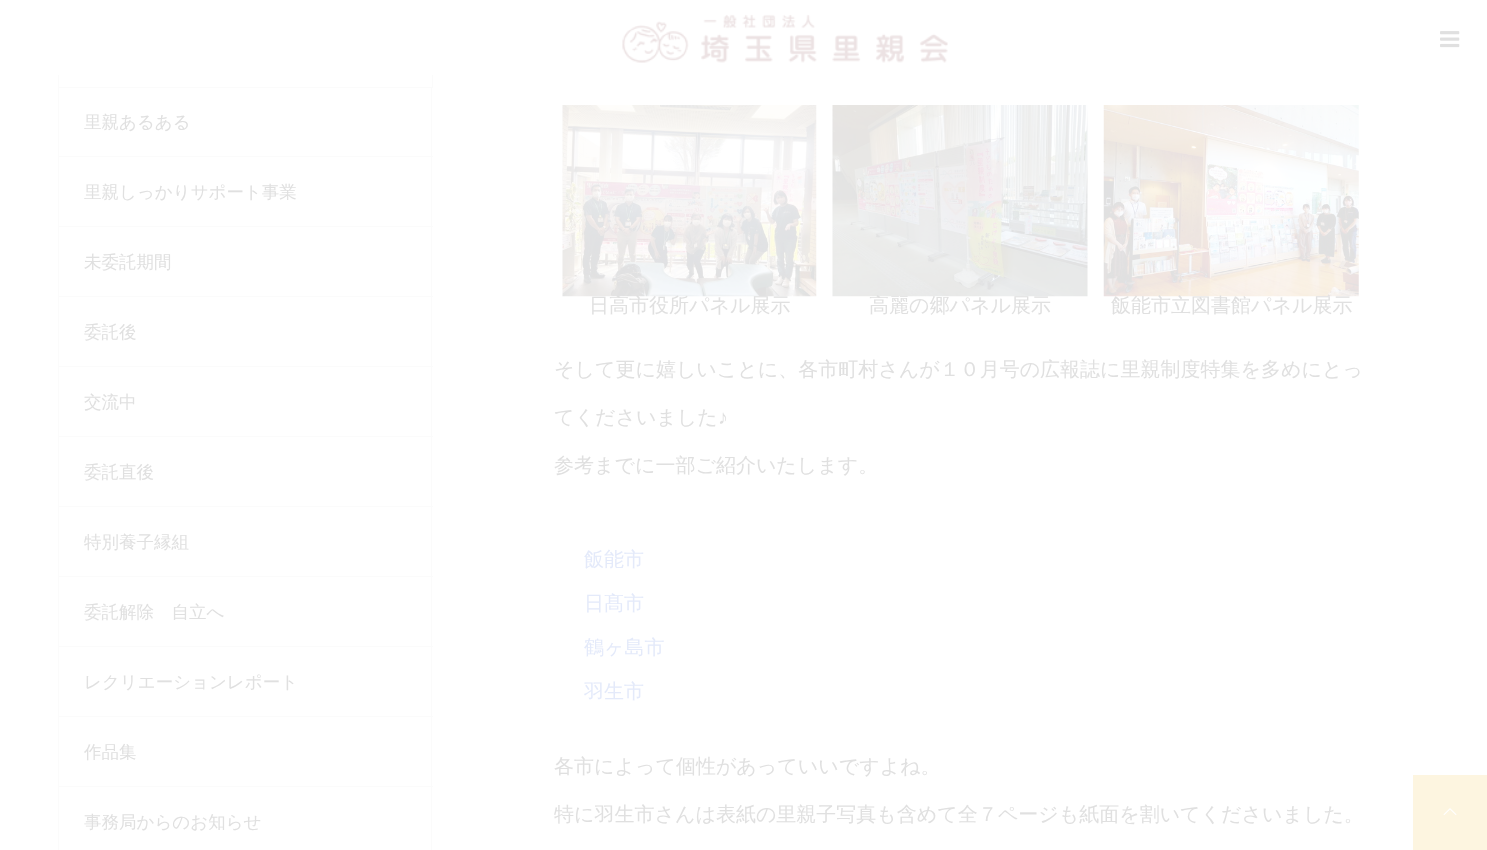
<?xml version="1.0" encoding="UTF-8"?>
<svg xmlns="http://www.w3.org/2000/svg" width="1487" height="850">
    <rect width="100%" height="100%" fill="#FFFFFF"/>
    <rect x="58.5" y="16.5" width="374" height="71" fill="none" stroke="#FBFBFB"/>
    <rect x="58" y="16" width="375" height="59" fill="#FFFFFF"/>
    <image x="622" y="14" width="326" height="49" href="img_01.png"/>
    <image x="1440" y="31" width="20" height="17" href="img_02.png"/>
    <rect x="431" y="88" width="1" height="762" fill="#FBFBFB"/>
    <rect x="58" y="156" width="375" height="1" fill="#FBFBFB"/>
    <rect x="58" y="88" width="1" height="70" fill="#FBFBFB"/>
    <text x="84" y="128" font-family="WenQuanYi Zen Hei" font-size="17.5" font-weight="500" fill="#E0E0E0">里親あるある</text>
    <rect x="58" y="226" width="375" height="1" fill="#FBFBFB"/>
    <rect x="58" y="158" width="1" height="70" fill="#FBFBFB"/>
    <text x="84" y="198" font-family="WenQuanYi Zen Hei" font-size="17.5" font-weight="500" fill="#E0E0E0">里親しっかりサポート事業</text>
    <rect x="58" y="296" width="375" height="1" fill="#FBFBFB"/>
    <rect x="58" y="228" width="1" height="70" fill="#FBFBFB"/>
    <text x="84" y="268" font-family="WenQuanYi Zen Hei" font-size="17.5" font-weight="500" fill="#E0E0E0">未委託期間</text>
    <rect x="58" y="366" width="375" height="1" fill="#FBFBFB"/>
    <rect x="58" y="298" width="1" height="70" fill="#FBFBFB"/>
    <text x="84" y="338" font-family="WenQuanYi Zen Hei" font-size="17.5" font-weight="500" fill="#E0E0E0">委託後</text>
    <rect x="58" y="436" width="375" height="1" fill="#FBFBFB"/>
    <rect x="58" y="368" width="1" height="70" fill="#FBFBFB"/>
    <text x="84" y="408" font-family="WenQuanYi Zen Hei" font-size="17.5" font-weight="500" fill="#E0E0E0">交流中</text>
    <rect x="58" y="506" width="375" height="1" fill="#FBFBFB"/>
    <rect x="58" y="438" width="1" height="70" fill="#FBFBFB"/>
    <text x="84" y="478" font-family="WenQuanYi Zen Hei" font-size="17.5" font-weight="500" fill="#E0E0E0">委託直後</text>
    <rect x="58" y="576" width="375" height="1" fill="#FBFBFB"/>
    <rect x="58" y="508" width="1" height="70" fill="#FBFBFB"/>
    <text x="84" y="548" font-family="WenQuanYi Zen Hei" font-size="17.5" font-weight="500" fill="#E0E0E0">特別養子縁組</text>
    <rect x="58" y="646" width="375" height="1" fill="#FBFBFB"/>
    <rect x="58" y="578" width="1" height="70" fill="#FBFBFB"/>
    <text x="84" y="618" font-family="WenQuanYi Zen Hei" font-size="17.5" font-weight="500" fill="#E0E0E0">委託解除　自立へ</text>
    <rect x="58" y="716" width="375" height="1" fill="#FBFBFB"/>
    <rect x="58" y="648" width="1" height="70" fill="#FBFBFB"/>
    <text x="84" y="688" font-family="WenQuanYi Zen Hei" font-size="17.5" font-weight="500" fill="#E0E0E0">レクリエーションレポート</text>
    <rect x="58" y="786" width="375" height="1" fill="#FBFBFB"/>
    <rect x="58" y="718" width="1" height="132" fill="#FBFBFB"/>
    <text x="84" y="758" font-family="WenQuanYi Zen Hei" font-size="17.5" font-weight="500" fill="#E0E0E0">作品集</text>
    <text x="84" y="828" font-family="WenQuanYi Zen Hei" font-size="17.5" font-weight="500" fill="#E0E0E0">事務局からのお知らせ</text>
    <image x="562" y="105" width="255" height="192" href="img_03.png"/>
    <image x="832" y="105" width="256" height="192" href="img_04.png"/>
    <image x="1103" y="105" width="256" height="192" href="img_05.png"/>
    <text x="589" y="312" font-family="WenQuanYi Zen Hei" font-size="20" font-weight="500" fill="#E0E0E0">日高市役所パネル展示</text>
    <text x="869" y="312" font-family="WenQuanYi Zen Hei" font-size="20" font-weight="500" fill="#E0E0E0">高麗の郷パネル展示</text>
    <text x="1111" y="312" font-family="WenQuanYi Zen Hei" font-size="20" font-weight="500" fill="#E0E0E0">飯能市立図書館パネル展示</text>
    <text x="554" y="376" font-family="WenQuanYi Zen Hei" font-size="20" font-weight="500" fill="#E0E0E0">そして更に嬉しいことに、各市町村さんが１０月号の広報誌に里親制度特集を多めにとっ</text>
    <text x="554" y="424" font-family="WenQuanYi Zen Hei" font-size="20" font-weight="500" fill="#E0E0E0">てくださいました</text>
    <text x="718" y="424" font-family="Liberation Sans" font-size="20" fill="#E0E0E0">♪</text>
    <text x="554" y="472" font-family="WenQuanYi Zen Hei" font-size="20" font-weight="500" fill="#E0E0E0">参考までに一部ご紹介いたします。</text>
    <text x="584" y="566" font-family="WenQuanYi Zen Hei" font-size="20" font-weight="500" fill="#E4EAFA">飯能市</text>
    <text x="584" y="610" font-family="WenQuanYi Zen Hei" font-size="20" font-weight="500" fill="#E4EAFA">日髙市</text>
    <text x="584" y="654" font-family="WenQuanYi Zen Hei" font-size="20" font-weight="500" fill="#E4EAFA">鶴ヶ島市</text>
    <text x="584" y="698" font-family="WenQuanYi Zen Hei" font-size="20" font-weight="500" fill="#E4EAFA">羽生市</text>
    <text x="554" y="773" font-family="WenQuanYi Zen Hei" font-size="20" font-weight="500" fill="#E0E0E0">各市によって個性があっていいですよね。</text>
    <text x="554" y="821" font-family="WenQuanYi Zen Hei" font-size="20" font-weight="500" fill="#E0E0E0">特に羽生市さんは表紙の里親子写真も含めて全７ページも紙面を割いてくださいました。</text>
    <rect x="1413" y="775" width="74" height="75" fill="#FDF5E0"/>
    <image x="1443" y="808" width="14" height="7" href="img_06.png"/>
</svg>
